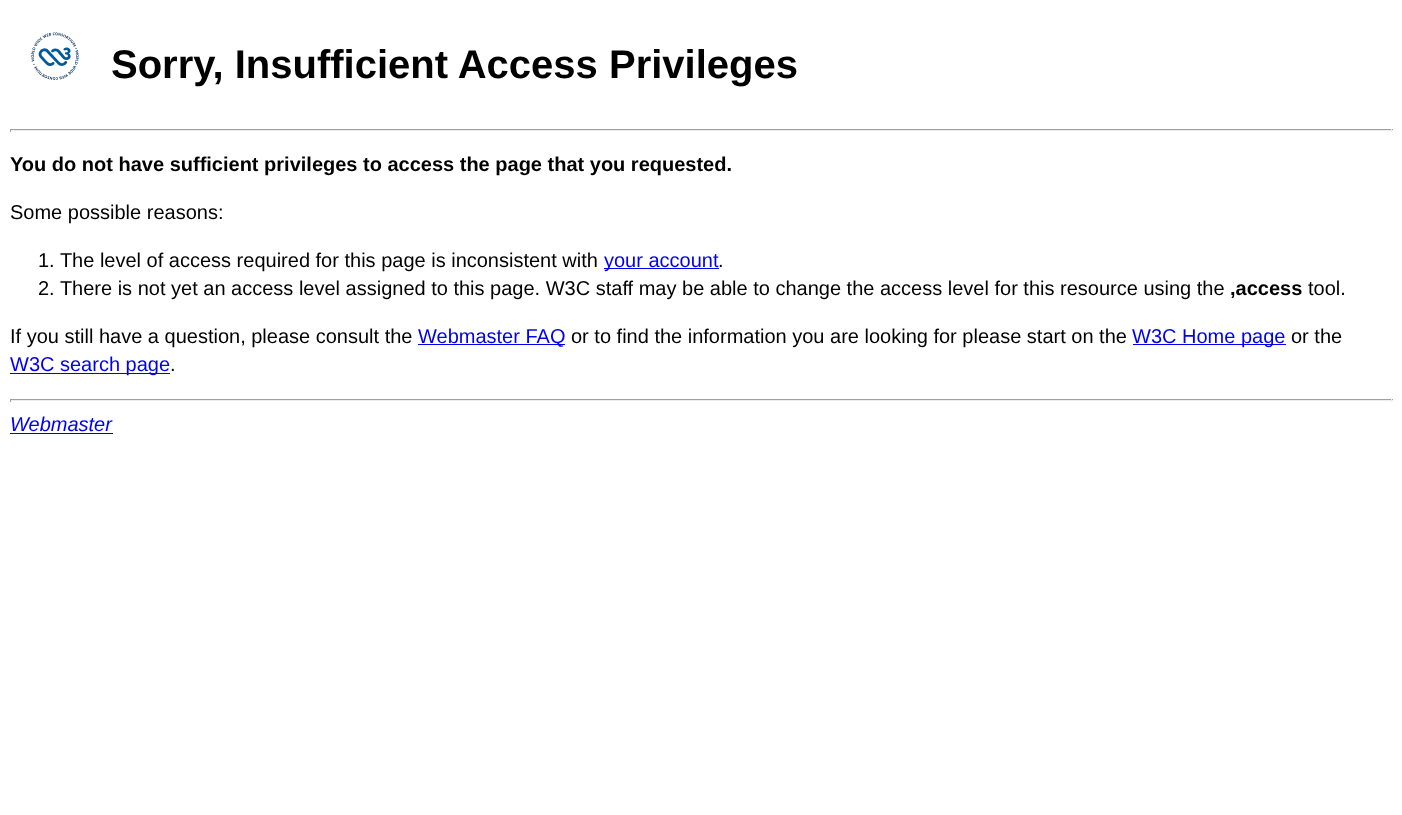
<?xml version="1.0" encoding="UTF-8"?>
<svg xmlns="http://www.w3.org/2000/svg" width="1402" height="815">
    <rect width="100%" height="100%" fill="#FFFFFF"/>
    <image x="31" y="32" width="48" height="48" href="img_01.png"/>
    <text x="111" y="78" font-family="Liberation Sans" font-size="40" font-weight="700" fill="#000000">Sorry, Insufficient Access Privileges</text>
    <rect x="10" y="129" width="1383" height="1" fill="#9F9F9F"/>
    <rect x="1391" y="129" width="1" height="3" fill="#EEEEEE"/>
    <rect x="10" y="130" width="1383" height="1" fill="#EEEEEE"/>
    <rect x="10" y="129" width="1" height="3" fill="#9F9F9F"/>
    <text x="10" y="171" font-family="Liberation Sans" font-size="20" font-weight="700" fill="#000000">You do not have sufficient privileges to access the page that you requested.</text>
    <text x="10" y="219" font-family="Liberation Sans" font-size="20" fill="#000000">Some possible reasons:</text>
    <text x="38" y="267" font-family="Liberation Sans" font-size="20" fill="#000000">1. The level of access required for this page is inconsistent with</text>
    <rect x="604" y="268" width="115" height="1" fill="#0000EE"/>
    <text x="604" y="267" font-family="Liberation Sans" font-size="20" fill="#0000EE">your account</text>
    <text x="718" y="267" font-family="Liberation Sans" font-size="20" fill="#000000">.</text>
    <text x="38" y="295" font-family="Liberation Sans" font-size="20" fill="#000000">2. There is not yet an access level assigned to this page. W3C staff may be able to change the access level for this resource using the</text>
    <text x="1230" y="295" font-family="Liberation Sans" font-size="20" font-weight="700" fill="#000000">,access</text>
    <text x="1308" y="295" font-family="Liberation Sans" font-size="20" fill="#000000">tool.</text>
    <text x="10" y="343" font-family="Liberation Sans" font-size="20" fill="#000000">If you still have a question, please consult the</text>
    <rect x="418" y="344" width="147" height="1" fill="#0000EE"/>
    <text x="418" y="343" font-family="Liberation Sans" font-size="20" fill="#0000EE">Webmaster FAQ</text>
    <text x="571" y="343" font-family="Liberation Sans" font-size="20" fill="#000000">or to find the information you are looking for please start on the</text>
    <rect x="1133" y="344" width="153" height="1" fill="#0000EE"/>
    <text x="1132" y="343" font-family="Liberation Sans" font-size="20" fill="#0000EE">W3C Home page</text>
    <text x="1291" y="343" font-family="Liberation Sans" font-size="20" fill="#000000">or the</text>
    <rect x="10" y="373" width="160" height="1" fill="#0000EE"/>
    <text x="10" y="371" font-family="Liberation Sans" font-size="20" fill="#0000EE">W3C search page</text>
    <text x="170" y="371" font-family="Liberation Sans" font-size="20" fill="#000000">.</text>
    <rect x="10" y="399" width="1383" height="1" fill="#9F9F9F"/>
    <rect x="1391" y="399" width="1" height="3" fill="#EEEEEE"/>
    <rect x="10" y="400" width="1383" height="1" fill="#EEEEEE"/>
    <rect x="10" y="399" width="1" height="3" fill="#9F9F9F"/>
    <text x="10" y="431" font-family="Liberation Sans" font-size="20" font-style="italic" fill="#0000EE">Webmaster</text>
    <rect x="10" y="433" width="103" height="1" fill="#0000EE"/>
</svg>
